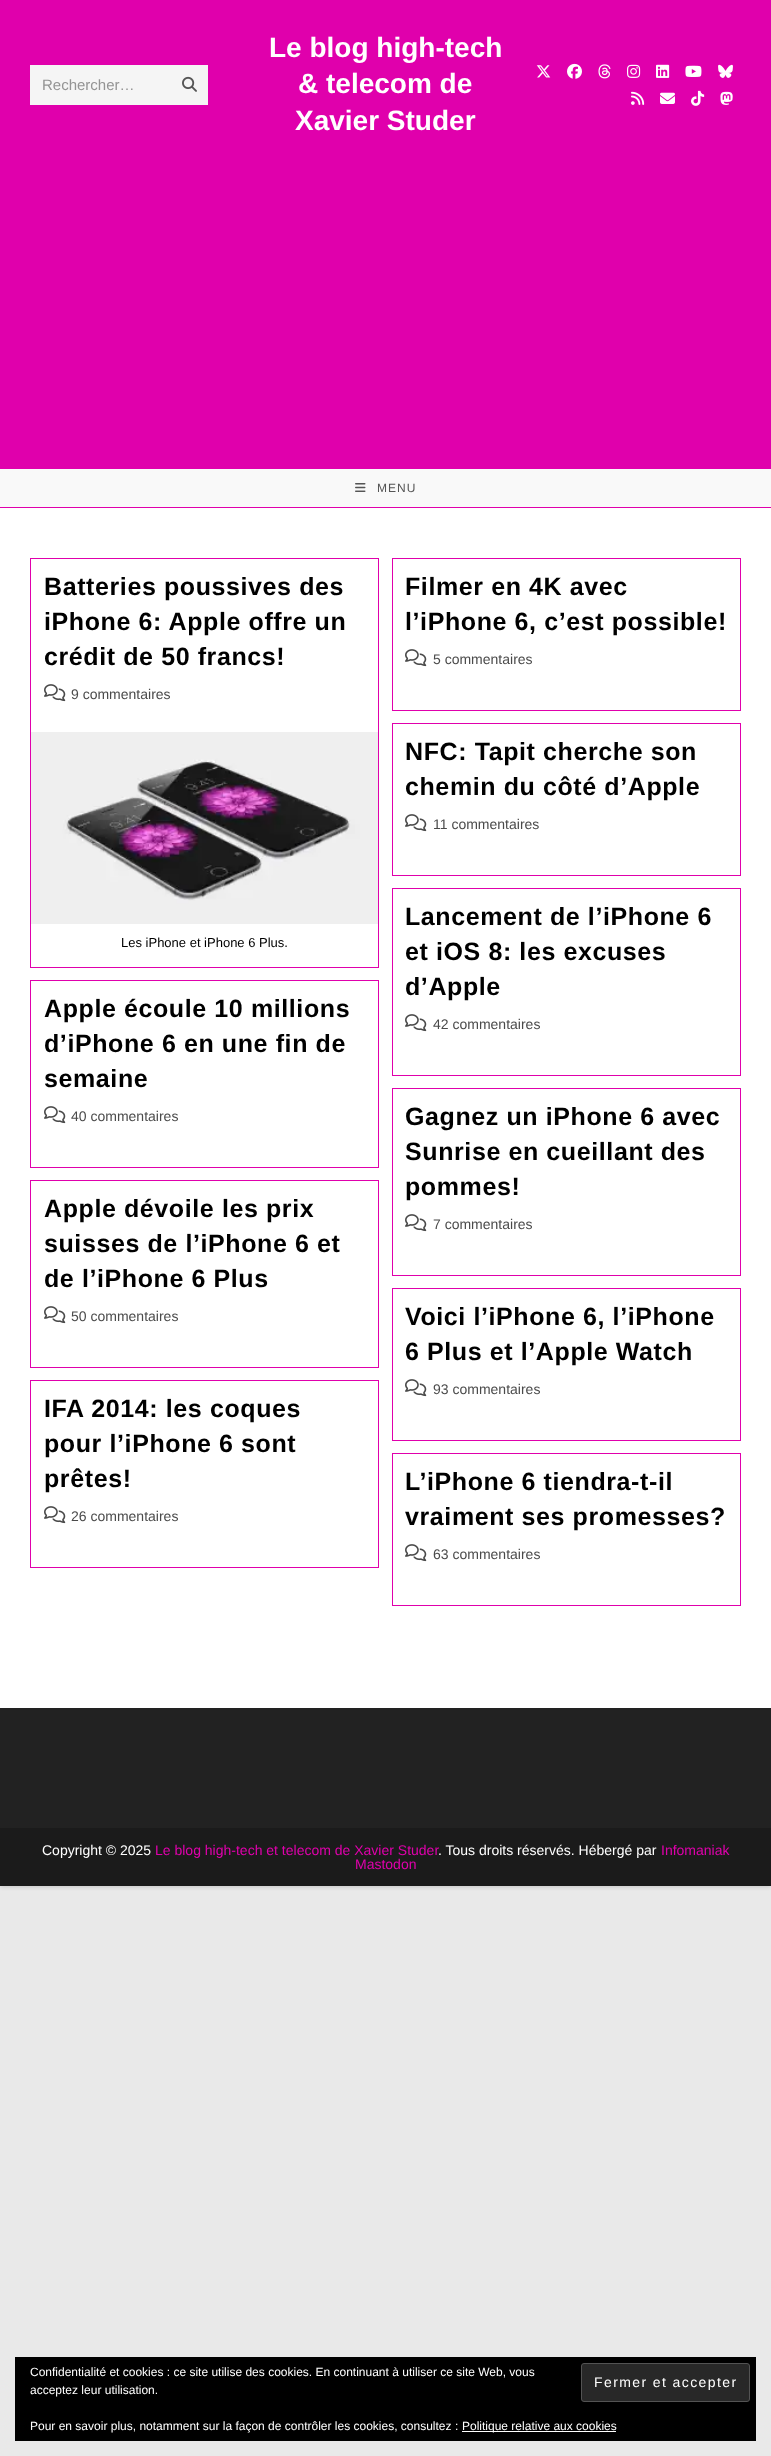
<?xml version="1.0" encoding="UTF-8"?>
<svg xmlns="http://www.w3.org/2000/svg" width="771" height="2456">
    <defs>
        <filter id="blur1" x="-50%" y="-200%" width="200%" height="500%"><feGaussianBlur stdDeviation="2"/></filter>
    </defs>
    <rect width="100%" height="100%" fill="#E9E9E9"/>
    <rect x="0" y="1" width="771" height="1886" fill="#000000" fill-opacity="0.15" filter="url(#blur1)"/>
    <rect x="0" y="508" width="771" height="1200" fill="#FFFFFF"/>
    <rect x="0" y="507" width="771" height="1" fill="#E000AC"/>
    <rect x="0" y="0" width="771" height="469" fill="#E000AC"/>
    <rect x="30" y="65" width="178" height="40" fill="#F5F5F5"/>
    <text x="42" y="90" font-family="Liberation Sans" font-size="15" fill="#949494">Rechercher…</text>
    <image x="182" y="76" width="15" height="16" href="img_01.png"/>
    <text x="269" y="57" font-family="Liberation Sans" font-size="28" font-weight="700" fill="#FFFFFF">Le blog high-tech</text>
    <text x="298" y="93" font-family="Liberation Sans" font-size="28" font-weight="700" fill="#FFFFFF">&amp; telecom de</text>
    <text x="295" y="130" font-family="Liberation Sans" font-size="28" font-weight="700" fill="#FFFFFF">Xavier Studer</text>
    <image x="536" y="65" width="15" height="13" href="img_02.png"/>
    <image x="567" y="63" width="15" height="16" href="img_03.png"/>
    <image x="598" y="64" width="13" height="15" href="img_04.png"/>
    <image x="627" y="64" width="14" height="14" href="img_05.png"/>
    <image x="656" y="64" width="14" height="14" href="img_06.png"/>
    <image x="685" y="65" width="17" height="12" href="img_07.png"/>
    <image x="718" y="64" width="15" height="14" href="img_08.png"/>
    <image x="631" y="91" width="14" height="14" href="img_09.png"/>
    <image x="660" y="92" width="15" height="12" href="img_10.png"/>
    <image x="691" y="90" width="14" height="16" href="img_11.png"/>
    <image x="720" y="91" width="13" height="14" href="img_12.png"/>
    <rect x="0" y="469" width="771" height="38" fill="#F9F9F9"/>
    <image x="355" y="483" width="11" height="9" href="img_13.png"/>
    <text x="377" y="492" font-family="Liberation Sans" font-size="12" letter-spacing="1" fill="#555555">MENU</text>
    <rect x="30.5" y="558.5" width="348" height="409" fill="none" stroke="#E000AC"/>
    <text font-family="Liberation Sans" font-size="25" font-weight="700" letter-spacing="0.6" fill="#000000">
        <tspan x="44" y="595">Batteries poussives des</tspan>
        <tspan x="44" y="630">iPhone 6: Apple offre un</tspan>
        <tspan x="44" y="665">crédit de 50 francs!</tspan>
    </text>
    <image x="44" y="684" width="22" height="18" href="img_14.png"/>
    <text x="71" y="699" font-family="Liberation Sans" font-size="14" fill="#4A4A4A">9 commentaires</text>
    <image x="31" y="732" width="347" height="192" href="img_15.png"/>
    <text x="121" y="947" font-family="Liberation Sans" font-size="13" fill="#000000">Les iPhone et iPhone 6 Plus.</text>
    <rect x="392.5" y="558.5" width="348" height="152" fill="none" stroke="#E000AC"/>
    <text font-family="Liberation Sans" font-size="25" font-weight="700" letter-spacing="0.6" fill="#000000">
        <tspan x="405" y="595">Filmer en 4K avec</tspan>
        <tspan x="405" y="630">l’iPhone 6, c’est possible!</tspan>
    </text>
    <image x="405" y="649" width="22" height="18" href="img_14.png"/>
    <text x="433" y="664" font-family="Liberation Sans" font-size="14" fill="#4A4A4A">5 commentaires</text>
    <rect x="392.5" y="723.5" width="348" height="152" fill="none" stroke="#E000AC"/>
    <text font-family="Liberation Sans" font-size="25" font-weight="700" letter-spacing="0.6" fill="#000000">
        <tspan x="405" y="760">NFC: Tapit cherche son</tspan>
        <tspan x="405" y="795">chemin du côté d’Apple</tspan>
    </text>
    <image x="405" y="814" width="22" height="18" href="img_14.png"/>
    <text x="433" y="829" font-family="Liberation Sans" font-size="14" fill="#4A4A4A">11 commentaires</text>
    <rect x="392.5" y="888.5" width="348" height="187" fill="none" stroke="#E000AC"/>
    <text font-family="Liberation Sans" font-size="25" font-weight="700" letter-spacing="0.6" fill="#000000">
        <tspan x="405" y="925">Lancement de l’iPhone 6</tspan>
        <tspan x="405" y="960">et iOS 8: les excuses</tspan>
        <tspan x="405" y="995">d’Apple</tspan>
    </text>
    <image x="405" y="1014" width="22" height="18" href="img_14.png"/>
    <text x="433" y="1029" font-family="Liberation Sans" font-size="14" fill="#4A4A4A">42 commentaires</text>
    <rect x="30.5" y="980.5" width="348" height="187" fill="none" stroke="#E000AC"/>
    <text font-family="Liberation Sans" font-size="25" font-weight="700" letter-spacing="0.6" fill="#000000">
        <tspan x="44" y="1017">Apple écoule 10 millions</tspan>
        <tspan x="44" y="1052">d’iPhone 6 en une fin de</tspan>
        <tspan x="44" y="1087">semaine</tspan>
    </text>
    <image x="44" y="1106" width="22" height="18" href="img_14.png"/>
    <text x="71" y="1121" font-family="Liberation Sans" font-size="14" fill="#4A4A4A">40 commentaires</text>
    <rect x="392.5" y="1088.5" width="348" height="187" fill="none" stroke="#E000AC"/>
    <text font-family="Liberation Sans" font-size="25" font-weight="700" letter-spacing="0.6" fill="#000000">
        <tspan x="405" y="1125">Gagnez un iPhone 6 avec</tspan>
        <tspan x="405" y="1160">Sunrise en cueillant des</tspan>
        <tspan x="405" y="1195">pommes!</tspan>
    </text>
    <image x="405" y="1214" width="22" height="18" href="img_14.png"/>
    <text x="433" y="1229" font-family="Liberation Sans" font-size="14" fill="#4A4A4A">7 commentaires</text>
    <rect x="30.5" y="1180.5" width="348" height="187" fill="none" stroke="#E000AC"/>
    <text font-family="Liberation Sans" font-size="25" font-weight="700" letter-spacing="0.6" fill="#000000">
        <tspan x="44" y="1217">Apple dévoile les prix</tspan>
        <tspan x="44" y="1252">suisses de l’iPhone 6 et</tspan>
        <tspan x="44" y="1287">de l’iPhone 6 Plus</tspan>
    </text>
    <image x="44" y="1306" width="22" height="18" href="img_14.png"/>
    <text x="71" y="1321" font-family="Liberation Sans" font-size="14" fill="#4A4A4A">50 commentaires</text>
    <rect x="392.5" y="1288.5" width="348" height="152" fill="none" stroke="#E000AC"/>
    <text font-family="Liberation Sans" font-size="25" font-weight="700" letter-spacing="0.6" fill="#000000">
        <tspan x="405" y="1325">Voici l’iPhone 6, l’iPhone</tspan>
        <tspan x="405" y="1360">6 Plus et l’Apple Watch</tspan>
    </text>
    <image x="405" y="1379" width="22" height="18" href="img_14.png"/>
    <text x="433" y="1394" font-family="Liberation Sans" font-size="14" fill="#4A4A4A">93 commentaires</text>
    <rect x="30.5" y="1380.5" width="348" height="187" fill="none" stroke="#E000AC"/>
    <text font-family="Liberation Sans" font-size="25" font-weight="700" letter-spacing="0.6" fill="#000000">
        <tspan x="44" y="1417">IFA 2014: les coques</tspan>
        <tspan x="44" y="1452">pour l’iPhone 6 sont</tspan>
        <tspan x="44" y="1487">prêtes!</tspan>
    </text>
    <image x="44" y="1506" width="22" height="18" href="img_14.png"/>
    <text x="71" y="1521" font-family="Liberation Sans" font-size="14" fill="#4A4A4A">26 commentaires</text>
    <rect x="392.5" y="1453.5" width="348" height="152" fill="none" stroke="#E000AC"/>
    <text font-family="Liberation Sans" font-size="25" font-weight="700" letter-spacing="0.6" fill="#000000">
        <tspan x="405" y="1490">L’iPhone 6 tiendra-t-il</tspan>
        <tspan x="405" y="1525">vraiment ses promesses?</tspan>
    </text>
    <image x="405" y="1544" width="22" height="18" href="img_14.png"/>
    <text x="433" y="1559" font-family="Liberation Sans" font-size="14" fill="#4A4A4A">63 commentaires</text>
    <rect x="0" y="1708" width="771" height="120" fill="#222222"/>
    <rect x="0" y="1828" width="771" height="58" fill="#1B1B1B"/>
    <text x="42" y="1855" font-family="Liberation Sans" font-size="14" fill="#FFFFFF">Copyright © 2025</text>
    <text x="155" y="1855" font-family="Liberation Sans" font-size="14" fill="#E000AC">Le blog high-tech et telecom de Xavier Studer</text>
    <text x="438" y="1855" font-family="Liberation Sans" font-size="14" fill="#FFFFFF">. Tous droits réservés. Hébergé par</text>
    <text x="661" y="1855" font-family="Liberation Sans" font-size="14" fill="#E000AC">Infomaniak</text>
    <text x="355" y="1869" font-family="Liberation Sans" font-size="14" fill="#E000AC">Mastodon</text>
    <rect x="15" y="2357" width="741" height="84" fill="#000000"/>
    <text font-family="Liberation Sans" font-size="12" fill="#FFFFFF">
        <tspan x="30" y="2376">Confidentialité et cookies : ce site utilise des cookies. En continuant à utiliser ce site Web, vous</tspan>
        <tspan x="30" y="2394">acceptez leur utilisation.</tspan>
    </text>
    <rect x="581.5" y="2363.5" width="168" height="38" rx="2.5" fill="#282828" stroke="#535353"/>
    <text x="594" y="2387" font-family="Liberation Sans" font-size="14" letter-spacing="1.4" fill="#FFFFFF">Fermer et accepter</text>
    <text x="30" y="2430" font-family="Liberation Sans" font-size="12" fill="#FFFFFF">Pour en savoir plus, notamment sur la façon de contrôler les cookies, consultez :</text>
    <rect x="462" y="2431" width="154" height="1" fill="#FFFFFF"/>
    <text x="462" y="2430" font-family="Liberation Sans" font-size="12" fill="#FFFFFF">Politique relative aux cookies</text>
</svg>
